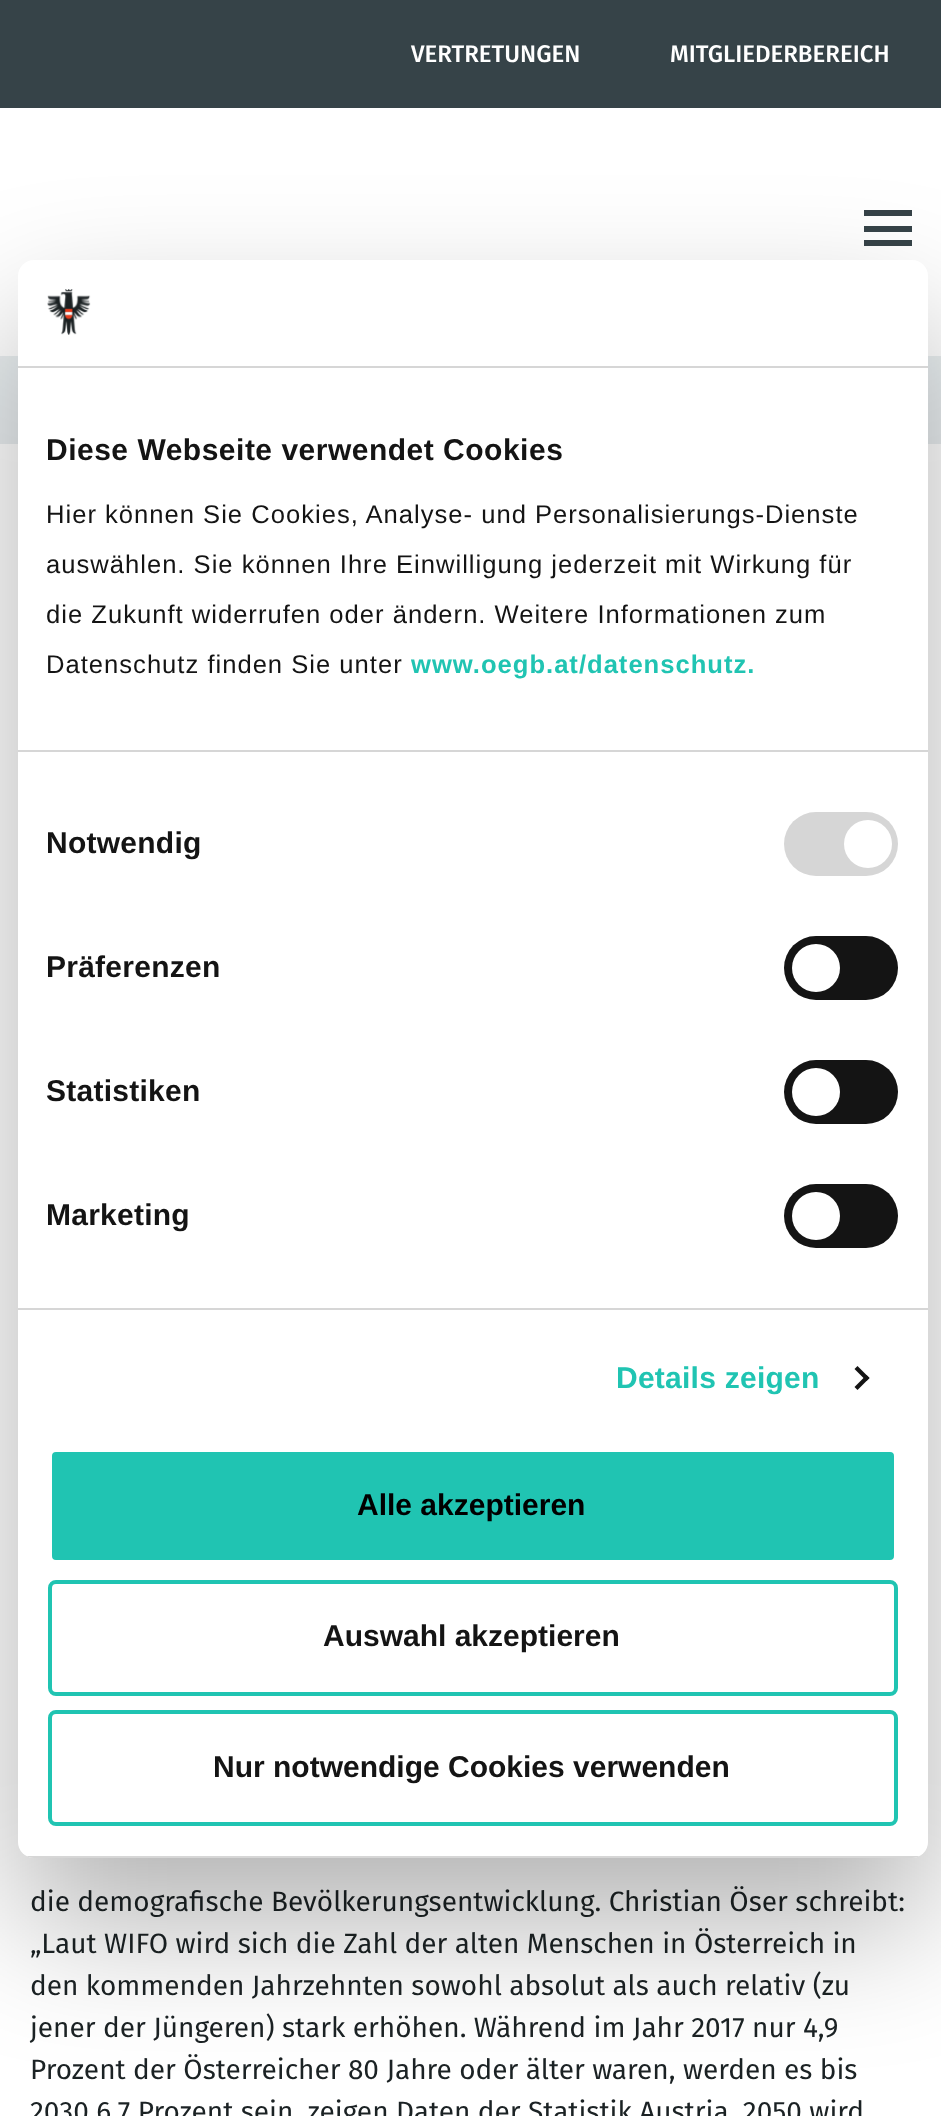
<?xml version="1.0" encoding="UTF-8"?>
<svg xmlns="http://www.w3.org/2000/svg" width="941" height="2116">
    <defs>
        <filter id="blur1" x="-50%" y="-200%" width="200%" height="500%"><feGaussianBlur stdDeviation="68"/></filter>
        <clipPath id="clip1"><rect x="18" y="260" width="910" height="1598" rx="16"/></clipPath>
    </defs>
    <rect width="100%" height="100%" fill="#FFFFFF"/>
    <rect x="0" y="0" width="941" height="108" fill="#364348"/>
    <text x="411" y="62" font-family="Fira Sans" font-size="24" font-weight="500" fill="#FFFFFF">VERTRETUNGEN</text>
    <text x="670" y="62" font-family="Fira Sans" font-size="24" font-weight="500" fill="#FFFFFF">MITGLIEDERBEREICH</text>
    <rect x="864" y="210" width="48" height="6" fill="#364348"/>
    <rect x="864" y="226" width="48" height="6" fill="#364348"/>
    <rect x="864" y="240" width="48" height="6" fill="#364348"/>
    <rect x="0" y="356" width="18" height="88" fill="#E9EEF0"/>
    <rect x="928" y="356" width="13" height="88" fill="#E9EEF0"/>
    <text font-family="Fira Sans" font-size="28" fill="#1B2224">
        <tspan x="30" y="1911">die demografische Bevölkerungsentwicklung. Christian Öser schreibt:</tspan>
        <tspan x="30" y="1953">„Laut WIFO wird sich die Zahl der alten Menschen in Österreich in</tspan>
        <tspan x="30" y="1995">den kommenden Jahrzehnten sowohl absolut als auch relativ (zu</tspan>
        <tspan x="30" y="2037">jener der Jüngeren) stark erhöhen. Während im Jahr 2017 nur 4,9</tspan>
        <tspan x="30" y="2079">Prozent der Österreicher 80 Jahre oder älter waren, werden es bis</tspan>
        <tspan x="30" y="2121">2030 6,7 Prozent sein, zeigen Daten der Statistik Austria. 2050 wird</tspan>
    </text>
    <rect x="18" y="324" width="910" height="1598" rx="16" fill="#000000" fill-opacity="0.3" filter="url(#blur1)"/>
    <rect x="18" y="260" width="910" height="1598" rx="16" fill="#FFFFFF"/>
    <rect x="18" y="366" width="910" height="2" fill="#D6D6D6"/>
    <image x="47" y="289" width="44" height="46" href="img_01.png"/>
    <rect x="18" y="750" width="910" height="2" fill="#D6D6D6"/>
    <text x="46" y="460" font-family="Liberation Sans" font-size="30" font-weight="700" letter-spacing="0.5" fill="#141414">Diese Webseite verwendet Cookies</text>
    <text font-family="Liberation Sans" font-size="25.6" letter-spacing="1" fill="#141414">
        <tspan x="46" y="523">Hier können Sie Cookies, Analyse- und Personalisierungs-Dienste</tspan>
        <tspan x="46" y="573">auswählen. Sie können Ihre Einwilligung jederzeit mit Wirkung für</tspan>
        <tspan x="46" y="623">die Zukunft widerrufen oder ändern. Weitere Informationen zum</tspan>
        <tspan x="46" y="673">Datenschutz finden Sie unter</tspan>
    </text>
    <text x="411" y="673" font-family="Liberation Sans" font-size="25.6" font-weight="700" letter-spacing="1" fill="#20C4B2">www.oegb.at/datenschutz.</text>
    <rect x="18" y="1308" width="910" height="2" fill="#D6D6D6"/>
    <text x="46" y="853" font-family="Liberation Sans" font-size="30" font-weight="700" letter-spacing="0.25" fill="#141414">Notwendig</text>
    <rect x="784" y="812" width="114" height="64" rx="32" fill="#D6D6D6"/>
    <circle cx="868" cy="844" r="24" fill="#FFFFFF"/>
    <text x="46" y="977" font-family="Liberation Sans" font-size="30" font-weight="700" letter-spacing="0.25" fill="#141414">Präferenzen</text>
    <rect x="784" y="936" width="114" height="64" rx="32" fill="#141414"/>
    <circle cx="816" cy="968" r="24" fill="#FFFFFF"/>
    <text x="46" y="1101" font-family="Liberation Sans" font-size="30" font-weight="700" letter-spacing="0.25" fill="#141414">Statistiken</text>
    <rect x="784" y="1060" width="114" height="64" rx="32" fill="#141414"/>
    <circle cx="816" cy="1092" r="24" fill="#FFFFFF"/>
    <text x="46" y="1225" font-family="Liberation Sans" font-size="30" font-weight="700" letter-spacing="0.25" fill="#141414">Marketing</text>
    <rect x="784" y="1184" width="114" height="64" rx="32" fill="#141414"/>
    <circle cx="816" cy="1216" r="24" fill="#FFFFFF"/>
    <text x="616" y="1388" font-family="Liberation Sans" font-size="30" font-weight="700" letter-spacing="0.25" fill="#20C4B2">Details zeigen</text>
    <path d="M 857.5 1366 L 869.5 1378 L 866.5 1381 L 854.5 1369 Z" fill="#141414"/>
    <path d="M 866.5 1375 L 869.5 1378 L 857.5 1390 L 854.5 1387 Z" fill="#141414"/>
    <g clip-path="url(#clip1)">
        <rect x="18" y="1856" width="910" height="2" fill="#D6D6D6"/>
    </g>
    <rect x="50" y="1450" width="846" height="112" rx="6" fill="#20C4B2" stroke="#FFFFFF" stroke-width="4"/>
    <text x="357" y="1515" font-family="Liberation Sans" font-size="30" font-weight="700" fill="#000000">Alle akzeptieren</text>
    <rect x="50" y="1582" width="846" height="112" rx="6" fill="none" stroke="#20C4B2" stroke-width="4"/>
    <text x="323" y="1646" font-family="Liberation Sans" font-size="30" font-weight="700" fill="#141414">Auswahl akzeptieren</text>
    <rect x="50" y="1712" width="846" height="112" rx="6" fill="none" stroke="#20C4B2" stroke-width="4"/>
    <text x="213" y="1777" font-family="Liberation Sans" font-size="30" font-weight="700" fill="#141414">Nur notwendige Cookies verwenden</text>
</svg>
